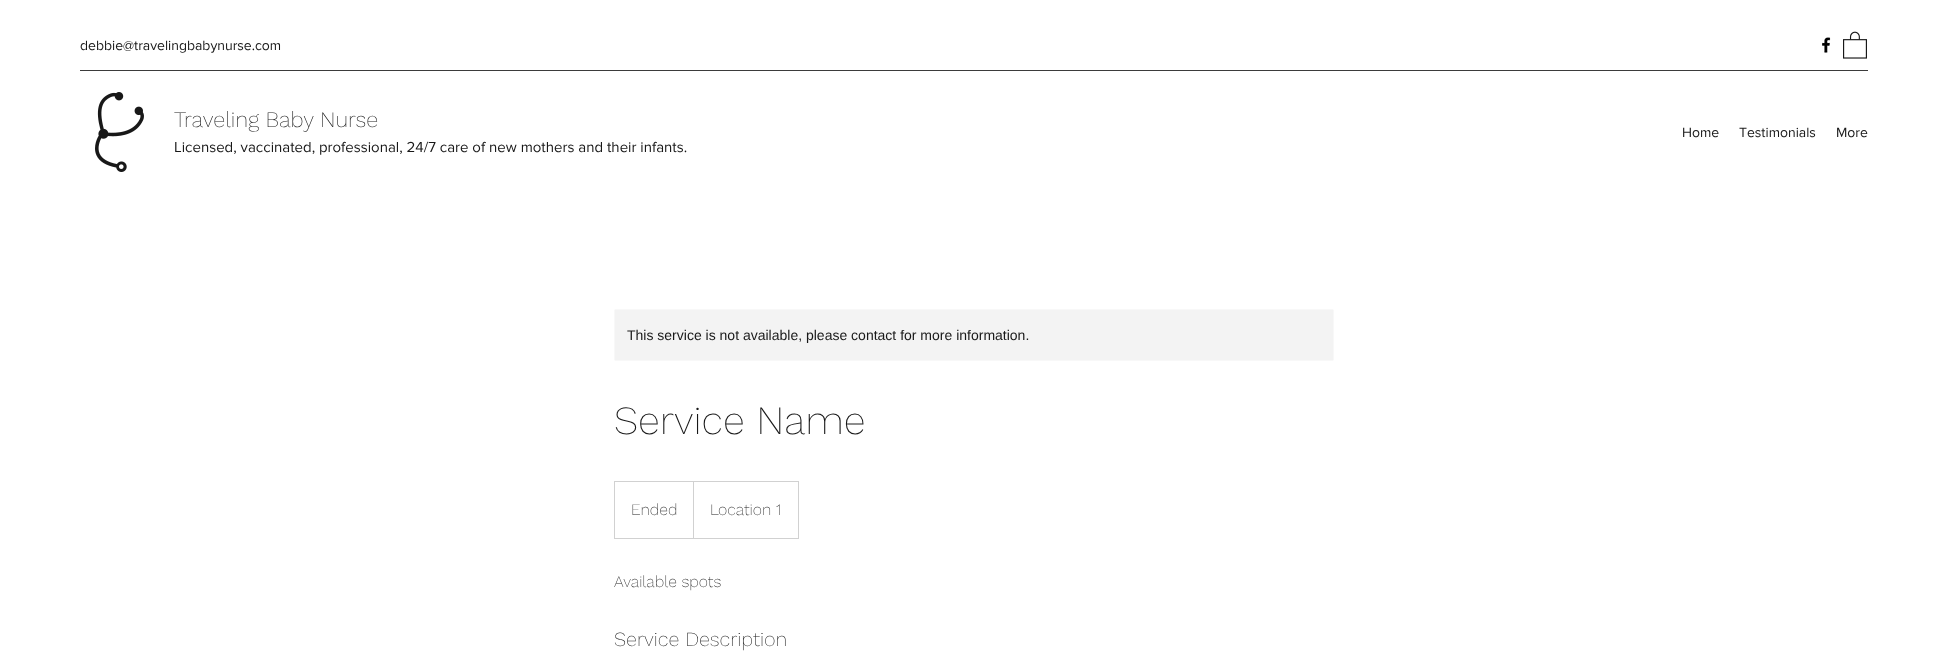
<?xml version="1.0" encoding="UTF-8"?>
<svg xmlns="http://www.w3.org/2000/svg" width="1948" height="656">
    <rect width="100%" height="100%" fill="#FFFFFF"/>
    <text x="80" y="50" font-family="'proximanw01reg'" font-size="14" fill="#181818">debbie@travelingbabynurse.com</text>
    <image x="1822" y="37" width="9" height="16" href="img_01.png"/>
    <image x="1843" y="31" width="24" height="28" href="img_02.png"/>
    <rect x="80" y="70" width="1788" height="1" fill="#3B3B3B"/>
    <image x="95" y="92" width="49" height="80" href="img_03.png"/>
    <text x="174" y="127" font-family="Work Sans" font-size="22" font-weight="200" fill="#181818">Traveling Baby Nurse</text>
    <text x="174" y="152" font-family="'proximanw01reg'" font-size="15" fill="#181818">Licensed, vaccinated, professional, 24/7 care of new mothers and their infants.</text>
    <text x="1682" y="137" font-family="'proximanw01reg'" font-size="14" fill="#181818">Home</text>
    <text x="1739" y="137" font-family="'proximanw01reg'" font-size="14" fill="#181818">Testimonials</text>
    <text x="1836" y="137" font-family="'proximanw01reg'" font-size="14" fill="#181818">More</text>
    <rect x="614.5" y="309.5" width="719" height="51" rx="1.5" fill="#F3F3F3" stroke="#F8F8F8"/>
    <text x="627" y="340" font-family="Liberation Sans" font-size="14" fill="#181818">This service is not available, please contact for more information.</text>
    <text x="614" y="434" font-family="Work Sans" font-size="40" font-weight="200" fill="#181818">Service Name</text>
    <rect x="614.5" y="481.5" width="184" height="57" fill="none" stroke="#D1D1D1"/>
    <text x="631" y="515" font-family="Work Sans" font-size="16" font-weight="200" fill="#181818">Ended</text>
    <path d="M 693 538 V 481 L 694 482 V 538 Z" fill="#D1D1D1"/>
    <text x="710" y="515" font-family="Work Sans" font-size="16" font-weight="200" fill="#181818">Location 1</text>
    <text x="614" y="587" font-family="Work Sans" font-size="16" font-weight="200" fill="#181818">Available spots</text>
    <text x="614" y="646" font-family="Work Sans" font-size="20" font-weight="200" fill="#181818">Service Description</text>
</svg>
